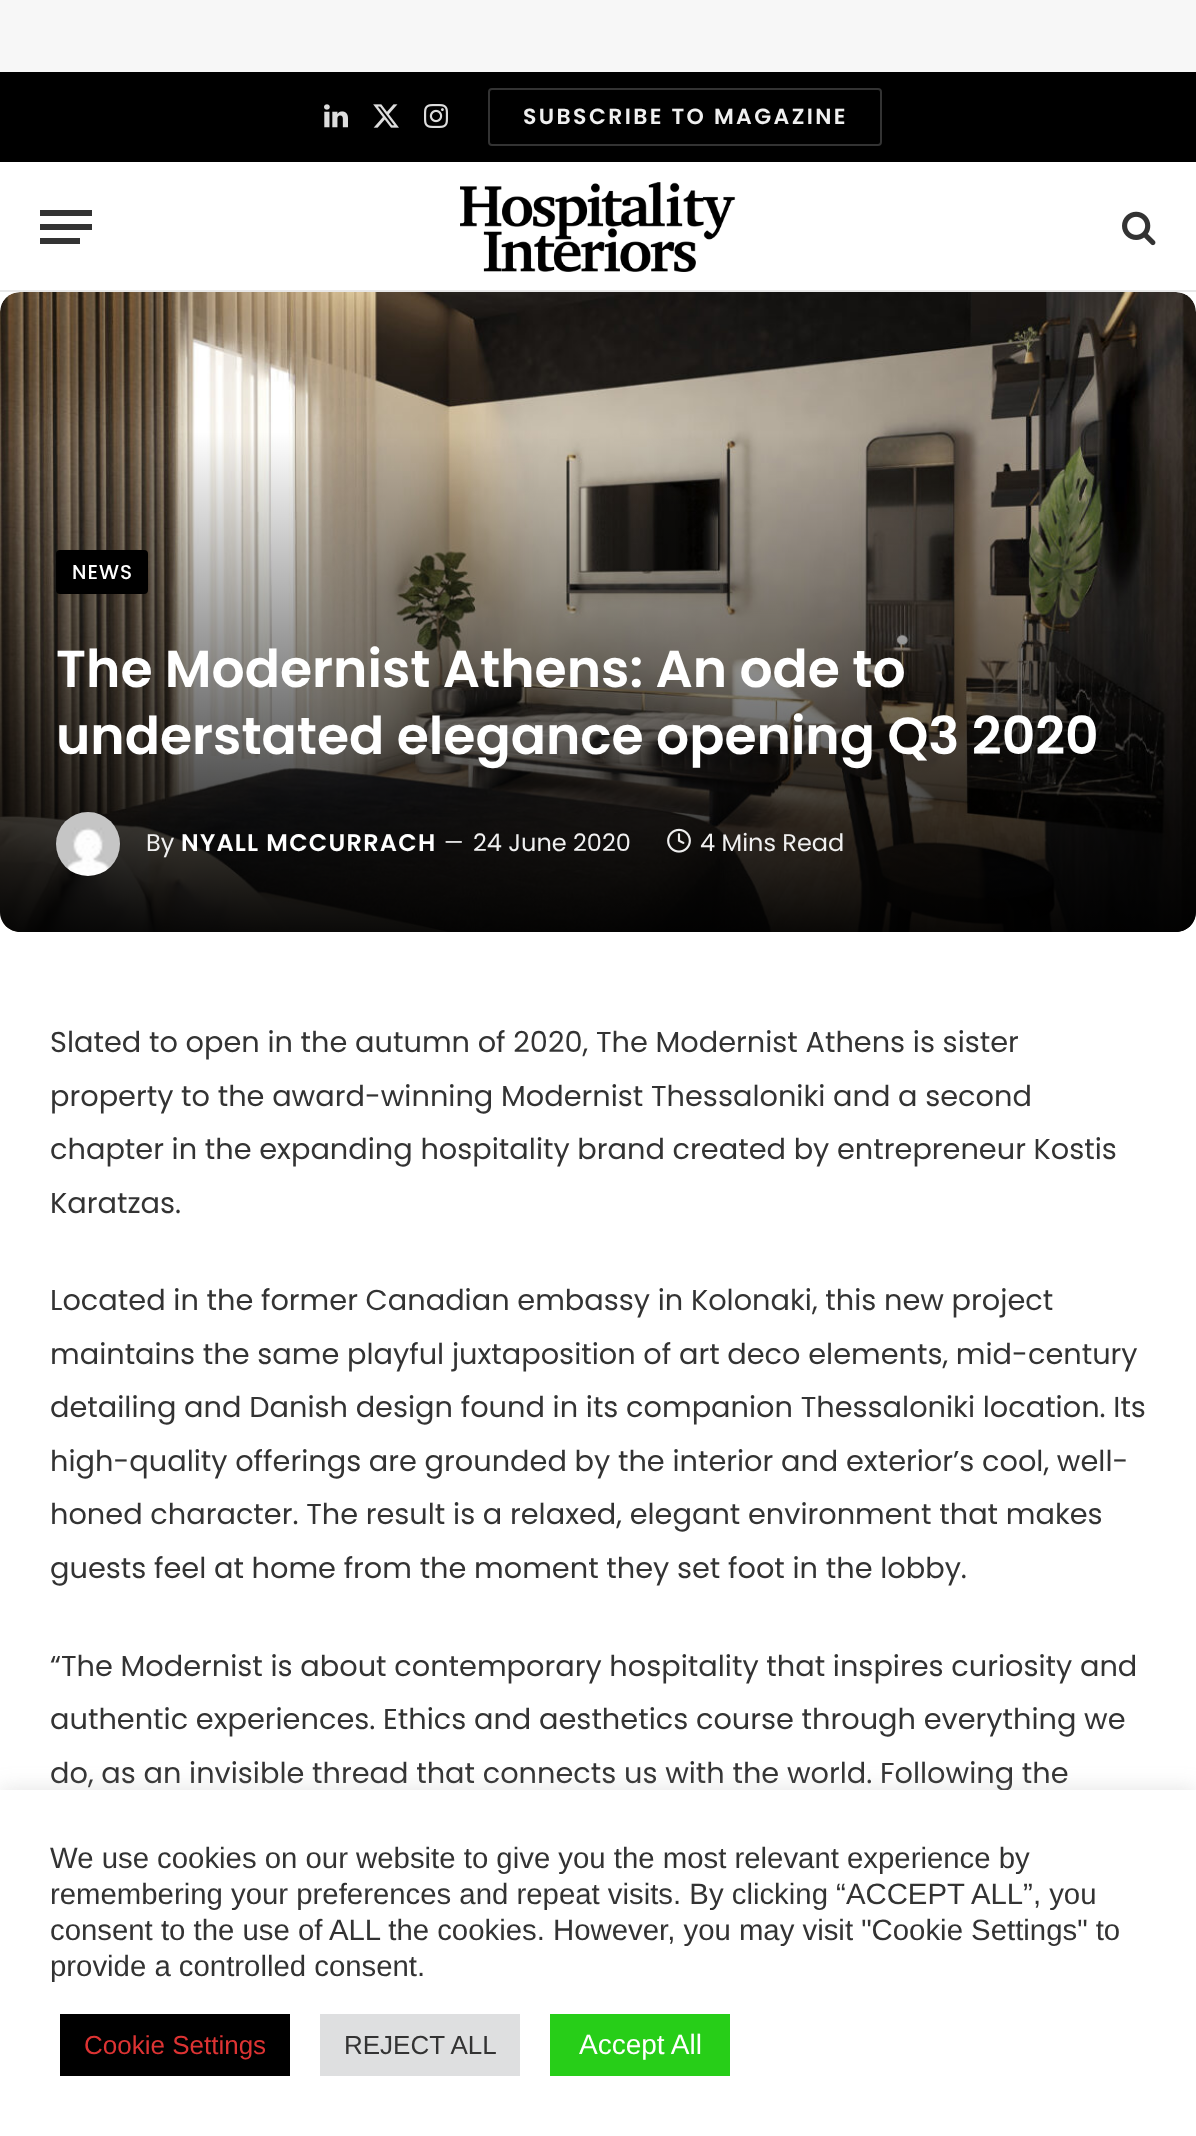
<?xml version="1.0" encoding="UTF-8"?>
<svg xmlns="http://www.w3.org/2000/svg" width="1196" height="2136">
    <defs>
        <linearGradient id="g1" gradientUnits="userSpaceOnUse" x1="598" y1="432" x2="598" y2="932"><stop offset="0" stop-color="#000000" stop-opacity="0"/><stop offset="1" stop-color="#000000" stop-opacity="0.95"/></linearGradient>
        <filter id="blur1" x="-50%" y="-200%" width="200%" height="500%"><feGaussianBlur stdDeviation="1"/></filter>
        <filter id="blur2" x="-50%" y="-200%" width="200%" height="500%"><feGaussianBlur stdDeviation="10"/></filter>
    </defs>
    <rect width="100%" height="100%" fill="#FFFFFF"/>
    <rect x="0" y="0" width="1196" height="72" fill="#F7F7F7"/>
    <rect x="0" y="72" width="1196" height="90" fill="#000000"/>
    <image x="324" y="104" width="24" height="24" href="img_01.png"/>
    <image x="373" y="104" width="26" height="24" href="img_02.png"/>
    <image x="424" y="104" width="24" height="24" href="img_03.png"/>
    <rect x="489" y="89" width="392" height="56" rx="3" fill="none" stroke="#333333" stroke-width="2"/>
    <text x="523" y="124" font-family="Poppins" font-size="22" font-weight="600" letter-spacing="2.4" fill="#F0F0F0">SUBSCRIBE TO MAGAZINE</text>
    <rect x="0" y="290" width="1196" height="2" fill="#E8E8E8"/>
    <rect x="40" y="238" width="40" height="6" fill="#333333"/>
    <rect x="40" y="210" width="52" height="6" fill="#333333"/>
    <rect x="40" y="224" width="52" height="6" fill="#333333"/>
    <image x="460" y="182" width="276" height="90" href="img_04.png"/>
    <image x="1122" y="211" width="34" height="35" href="img_05.png"/>
    <image x="0" y="292" width="1196" height="640" href="img_06.png"/>
    <path d="M 0 432 H 1196 V 912 C 1196 923 1187 932 1176 932 H 20 C 9 932 0 923 0 912 Z" fill="url(#g1)"/>
    <rect x="56" y="550" width="92" height="44" rx="4" fill="#000000"/>
    <text x="72" y="579" font-family="Poppins" font-size="20" font-weight="500" letter-spacing="1" fill="#FFFFFF">NEWS</text>
    <text font-family="Poppins" font-size="52" font-weight="600" fill="#FFFFFF">
        <tspan x="56" y="687">The Modernist Athens: An ode to</tspan>
        <tspan x="56" y="754">understated elegance opening Q3 2020</tspan>
    </text>
    <rect x="56" y="812" width="64" height="64" rx="32" fill="#000000" fill-opacity="0.2" filter="url(#blur1)"/>
    <image x="56" y="812" width="64" height="64" href="img_07.png"/>
    <text x="146" y="851" font-family="Poppins" font-size="24" fill="#F0F0F0">By</text>
    <text x="181" y="851" font-family="Poppins" font-size="24" font-weight="600" letter-spacing="1.25" fill="#FFFFFF">NYALL MCCURRACH</text>
    <text x="444" y="850" font-family="Poppins" font-size="22" fill="#F0F0F0">—</text>
    <text x="473" y="851" font-family="Poppins" font-size="24" fill="#F0F0F0">24 June 2020</text>
    <image x="667" y="828" width="24" height="25" href="img_08.png"/>
    <text x="700" y="851" font-family="Poppins" font-size="24" fill="#F0F0F0">4 Mins Read</text>
    <text font-family="Poppins" font-size="28.8" fill="#333333">
        <tspan x="50" y="1052">Slated to open in the autumn of 2020, The Modernist Athens is sister</tspan>
        <tspan x="50" y="1106">property to the award-winning Modernist Thessaloniki and a second</tspan>
        <tspan x="50" y="1159">chapter in the expanding hospitality brand created by entrepreneur Kostis</tspan>
        <tspan x="50" y="1213">Karatzas.</tspan>
    </text>
    <text font-family="Poppins" font-size="28.8" fill="#333333">
        <tspan x="50" y="1310">Located in the former Canadian embassy in Kolonaki, this new project</tspan>
        <tspan x="50" y="1364">maintains the same playful juxtaposition of art deco elements, mid-century</tspan>
        <tspan x="50" y="1417">detailing and Danish design found in its companion Thessaloniki location. Its</tspan>
        <tspan x="50" y="1471">high-quality offerings are grounded by the interior and exterior’s cool, well-</tspan>
        <tspan x="50" y="1524">honed character. The result is a relaxed, elegant environment that makes</tspan>
        <tspan x="50" y="1578">guests feel at home from the moment they set foot in the lobby.</tspan>
    </text>
    <text font-family="Poppins" font-size="28.8" fill="#333333">
        <tspan x="50" y="1676">“The Modernist is about contemporary hospitality that inspires curiosity and</tspan>
        <tspan x="50" y="1729">authentic experiences. Ethics and aesthetics course through everything we</tspan>
        <tspan x="50" y="1783">do, as an invisible thread that connects us with the world. Following the</tspan>
    </text>
    <rect x="0" y="1788" width="1196" height="346" fill="#ACABAB" fill-opacity="0.3" filter="url(#blur2)"/>
    <rect x="0" y="1790" width="1196" height="346" fill="#FFFFFF"/>
    <text font-family="Liberation Sans" font-size="29.35" fill="#333333">
        <tspan x="50" y="1868">We use cookies on our website to give you the most relevant experience by</tspan>
        <tspan x="50" y="1904">remembering your preferences and repeat visits. By clicking “ACCEPT ALL”, you</tspan>
        <tspan x="50" y="1940">consent to the use of ALL the cookies. However, you may visit "Cookie Settings" to</tspan>
        <tspan x="50" y="1976">provide a controlled consent.</tspan>
    </text>
    <rect x="60" y="2014" width="230" height="62" fill="#000000"/>
    <text x="84" y="2054" font-family="Liberation Sans" font-size="26" fill="#DD3333">Cookie Settings</text>
    <rect x="320" y="2014" width="200" height="62" fill="#DEDFE0"/>
    <text x="344" y="2054" font-family="Liberation Sans" font-size="26" fill="#333333">REJECT ALL</text>
    <rect x="550" y="2014" width="180" height="62" fill="#27CE18"/>
    <text x="579" y="2054" font-family="Liberation Sans" font-size="28" fill="#FFFFFF">Accept All</text>
</svg>
